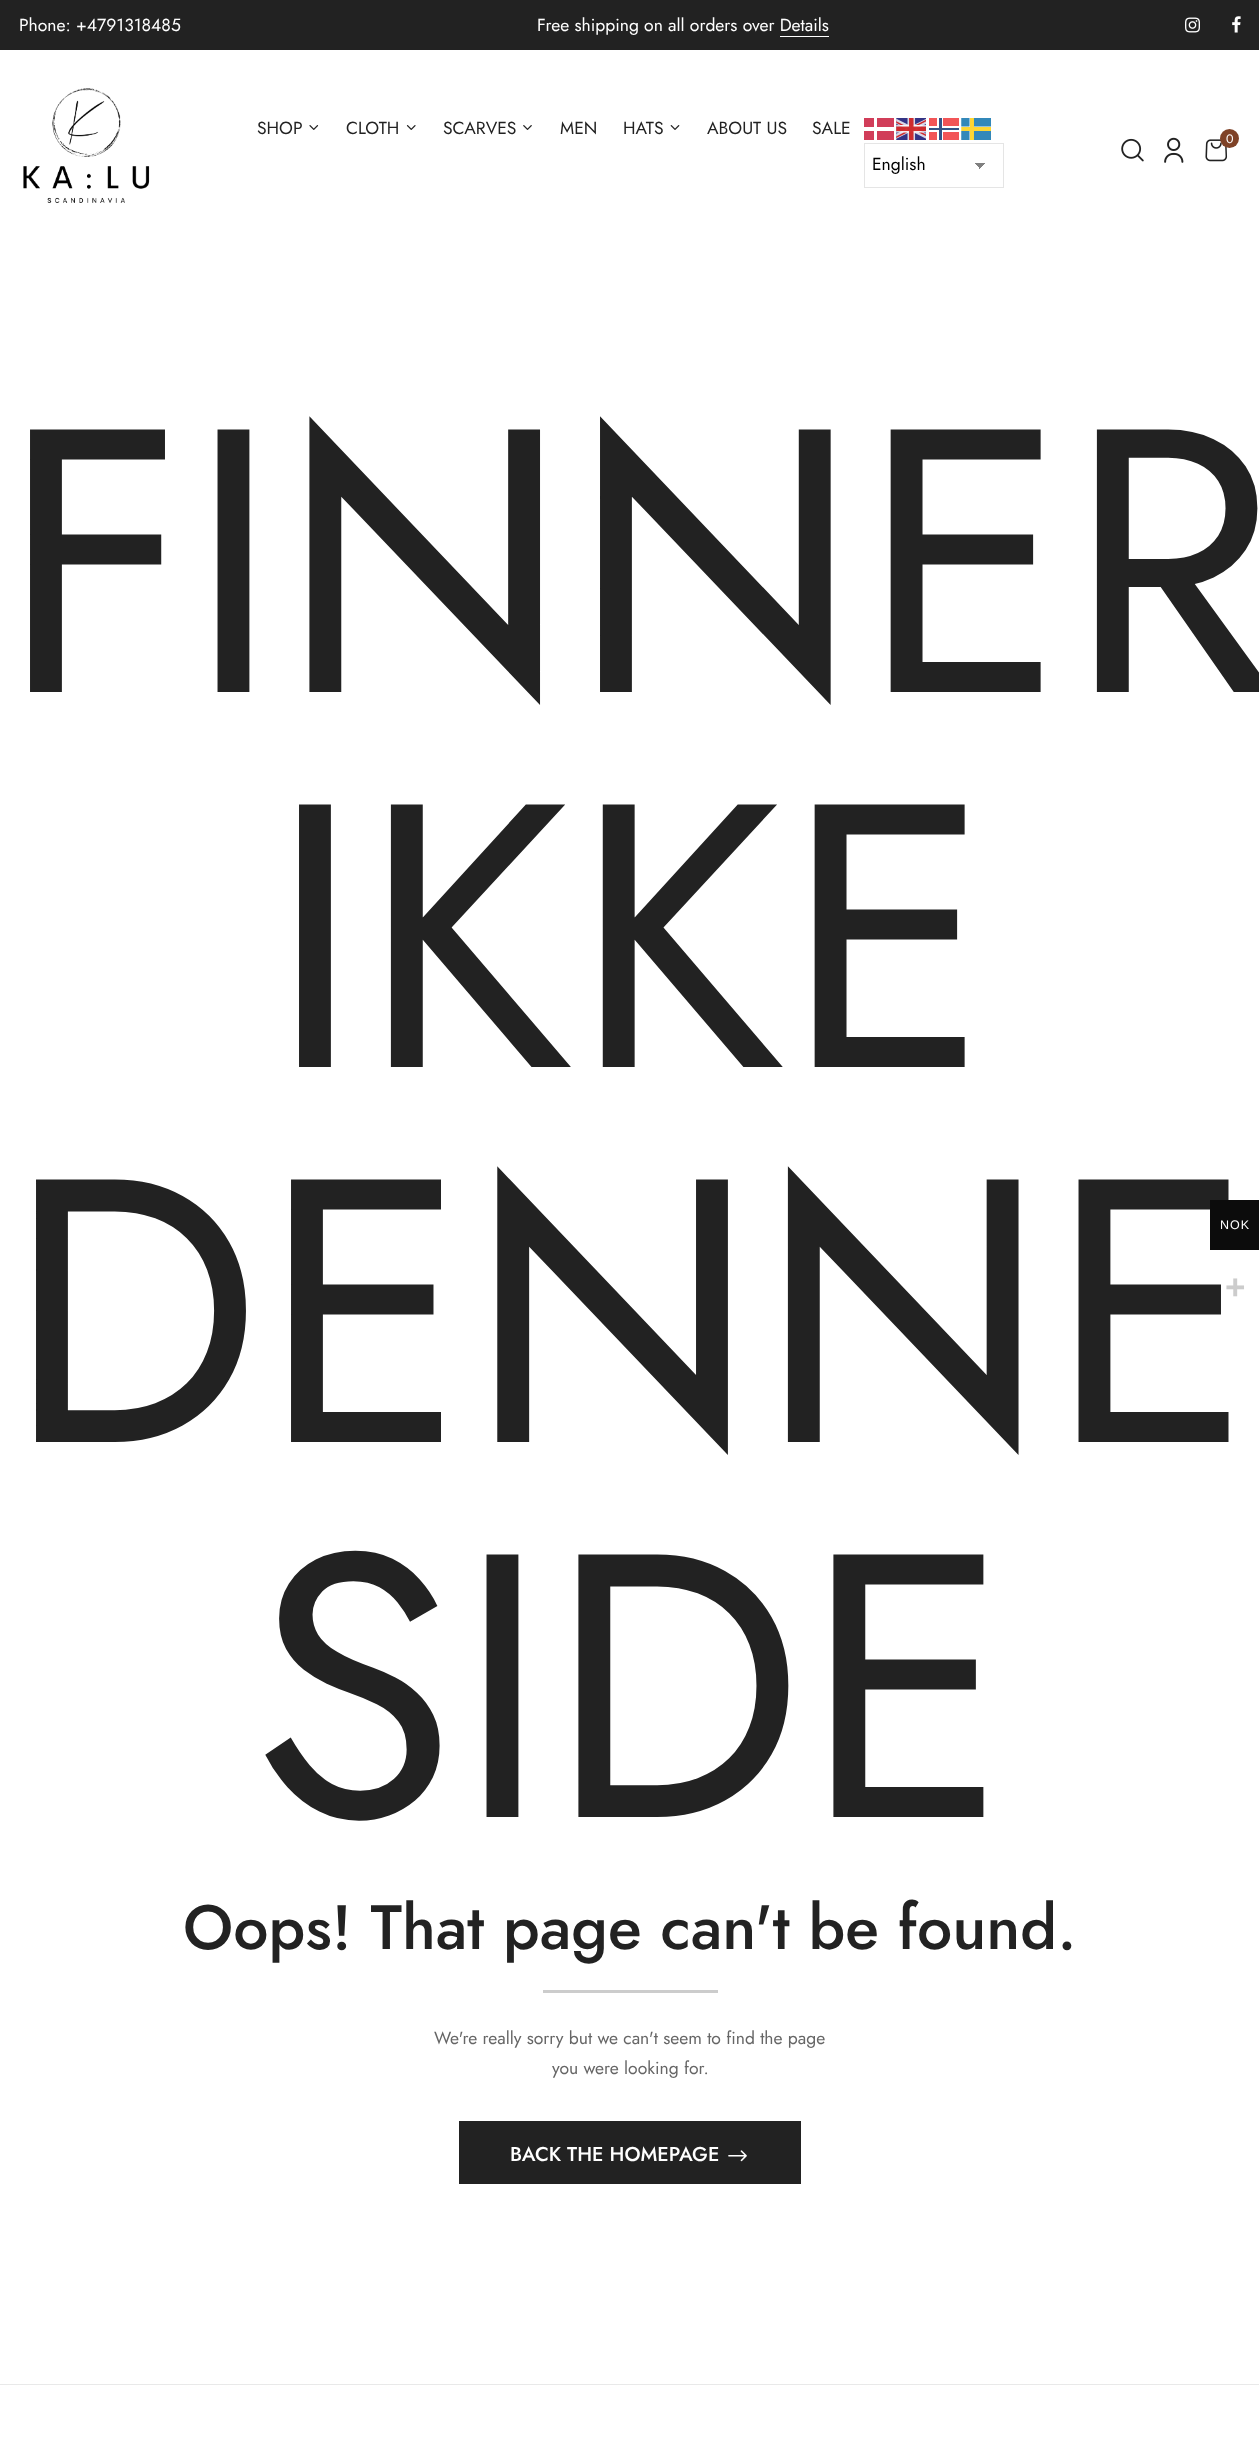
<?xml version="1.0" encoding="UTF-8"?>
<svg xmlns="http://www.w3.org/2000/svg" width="1259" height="2445">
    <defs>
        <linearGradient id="g1" gradientUnits="userSpaceOnUse" x1="979" y1="162" x2="986" y2="169"><stop offset="0.5" stop-color="#808080"/><stop offset="0.5" stop-color="#FFFFFF"/></linearGradient>
        <linearGradient id="g2" gradientUnits="userSpaceOnUse" x1="973" y1="169" x2="980" y2="162"><stop offset="0.5" stop-color="#808080" stop-opacity="0"/><stop offset="0.5" stop-color="#808080"/></linearGradient>
    </defs>
    <rect width="100%" height="100%" fill="#FFFFFF"/>
    <rect x="0" y="0" width="1259" height="50" fill="#222222"/>
    <text x="19" y="31" font-family="Jost" font-size="17.5" fill="#FFFFFF">Phone: +4791318485</text>
    <text x="537" y="31" font-family="Jost" font-size="17.5" fill="#FFFFFF">Free shipping on all orders over Details</text>
    <rect x="780" y="36" width="49" height="1" fill="#FFFFFF"/>
    <image x="1185" y="17" width="15" height="16" href="img_01.png"/>
    <image x="1232" y="16" width="9" height="17" href="img_02.png"/>
    <image x="23" y="88" width="127" height="115" href="img_03.png"/>
    <text x="257" y="134" font-family="Jost" font-size="17.5" fill="#222222">SHOP</text>
    <image x="309" y="125" width="10" height="5" href="img_04.png"/>
    <text x="346" y="134" font-family="Jost" font-size="17.5" fill="#222222">CLOTH</text>
    <image x="406" y="125" width="10" height="5" href="img_05.png"/>
    <text x="443" y="134" font-family="Jost" font-size="17.5" fill="#222222">SCARVES</text>
    <image x="523" y="125" width="9" height="5" href="img_06.png"/>
    <text x="560" y="134" font-family="Jost" font-size="17.5" fill="#222222">MEN</text>
    <text x="623" y="134" font-family="Jost" font-size="17.5" fill="#222222">HATS</text>
    <image x="670" y="125" width="10" height="5" href="img_07.png"/>
    <text x="707" y="134" font-family="Jost" font-size="17.5" fill="#222222">ABOUT US</text>
    <text x="812" y="134" font-family="Jost" font-size="17.5" fill="#222222">SALE</text>
    <rect x="864" y="118" width="30" height="22" fill="#D13D59"/>
    <rect x="874" y="118" width="3" height="22" fill="#FFFFFF"/>
    <image x="896" y="118" width="30" height="22" href="img_08.png"/>
    <rect x="929" y="118" width="30" height="22" fill="#F25557"/>
    <rect x="937" y="118" width="6" height="22" fill="#FFFFFF"/>
    <rect x="929" y="126" width="30" height="6" fill="#FFFFFF"/>
    <rect x="939" y="118" width="3" height="22" fill="#335386"/>
    <image x="961" y="118" width="30" height="22" href="img_09.png"/>
    <rect x="864" y="127" width="30" height="4" fill="#FFFFFF"/>
    <rect x="929" y="128" width="30" height="2" fill="#335386"/>
    <rect x="979" y="163" width="7" height="6" fill="url(#g1)"/>
    <rect x="973" y="163" width="7" height="4" fill="url(#g2)"/>
    <rect x="864.5" y="143.5" width="139" height="44" fill="none" stroke="#E5E5E5"/>
    <text x="872" y="170" font-family="Jost" font-size="17.5" fill="#000000">English</text>
    <image x="1121" y="138" width="23" height="24" href="img_10.png"/>
    <image x="1164" y="137" width="20" height="26" href="img_11.png"/>
    <image x="1205" y="139" width="23" height="23" href="img_12.png"/>
    <circle cx="1229.5" cy="138.5" r="9.5" fill="#7F4227"/>
    <text x="1226" y="143" font-family="Jost" font-size="12.5" fill="#FFFFFF">0</text>
    <text x="0" y="692" font-family="Jost" font-size="375" fill="#222222">FINNER</text>
    <text x="269" y="1067" font-family="Jost" font-size="375" fill="#222222">IKKE</text>
    <text x="6" y="1442" font-family="Jost" font-size="375" fill="#222222">DENNE</text>
    <text x="251" y="1817" font-family="Jost" font-size="375" fill="#222222">SIDE</text>
    <text x="183" y="1949" font-family="Jost" font-size="62.5" font-weight="500" fill="#222222">Oops! That page can't be found.</text>
    <rect x="543" y="1990" width="175" height="3" fill="#CCCCCC"/>
    <text x="434" y="2044" font-family="Jost" font-size="17.5" fill="#666666">We're really sorry but we can't seem to find the page</text>
    <text x="552" y="2074" font-family="Jost" font-size="17.5" fill="#666666">you were looking for.</text>
    <rect x="459" y="2121" width="342" height="63" fill="#222222"/>
    <text x="510" y="2161" font-family="Jost" font-size="20" font-weight="500" fill="#FFFFFF">BACK THE HOMEPAGE</text>
    <image x="728" y="2150" width="19" height="12" href="img_13.png"/>
    <rect x="0" y="2384" width="1259" height="1" fill="#E9E9E9"/>
    <rect x="1210" y="1200" width="49" height="50" fill="#0C0C0C"/>
    <text x="1220" y="1229" font-family="Liberation Sans" font-size="12.5" letter-spacing="1" fill="#FFFFFF">NOK</text>
    <text x="1225" y="1299" font-family="Liberation Sans" font-size="35" font-weight="700" fill="#CCCCCC">+</text>
</svg>
